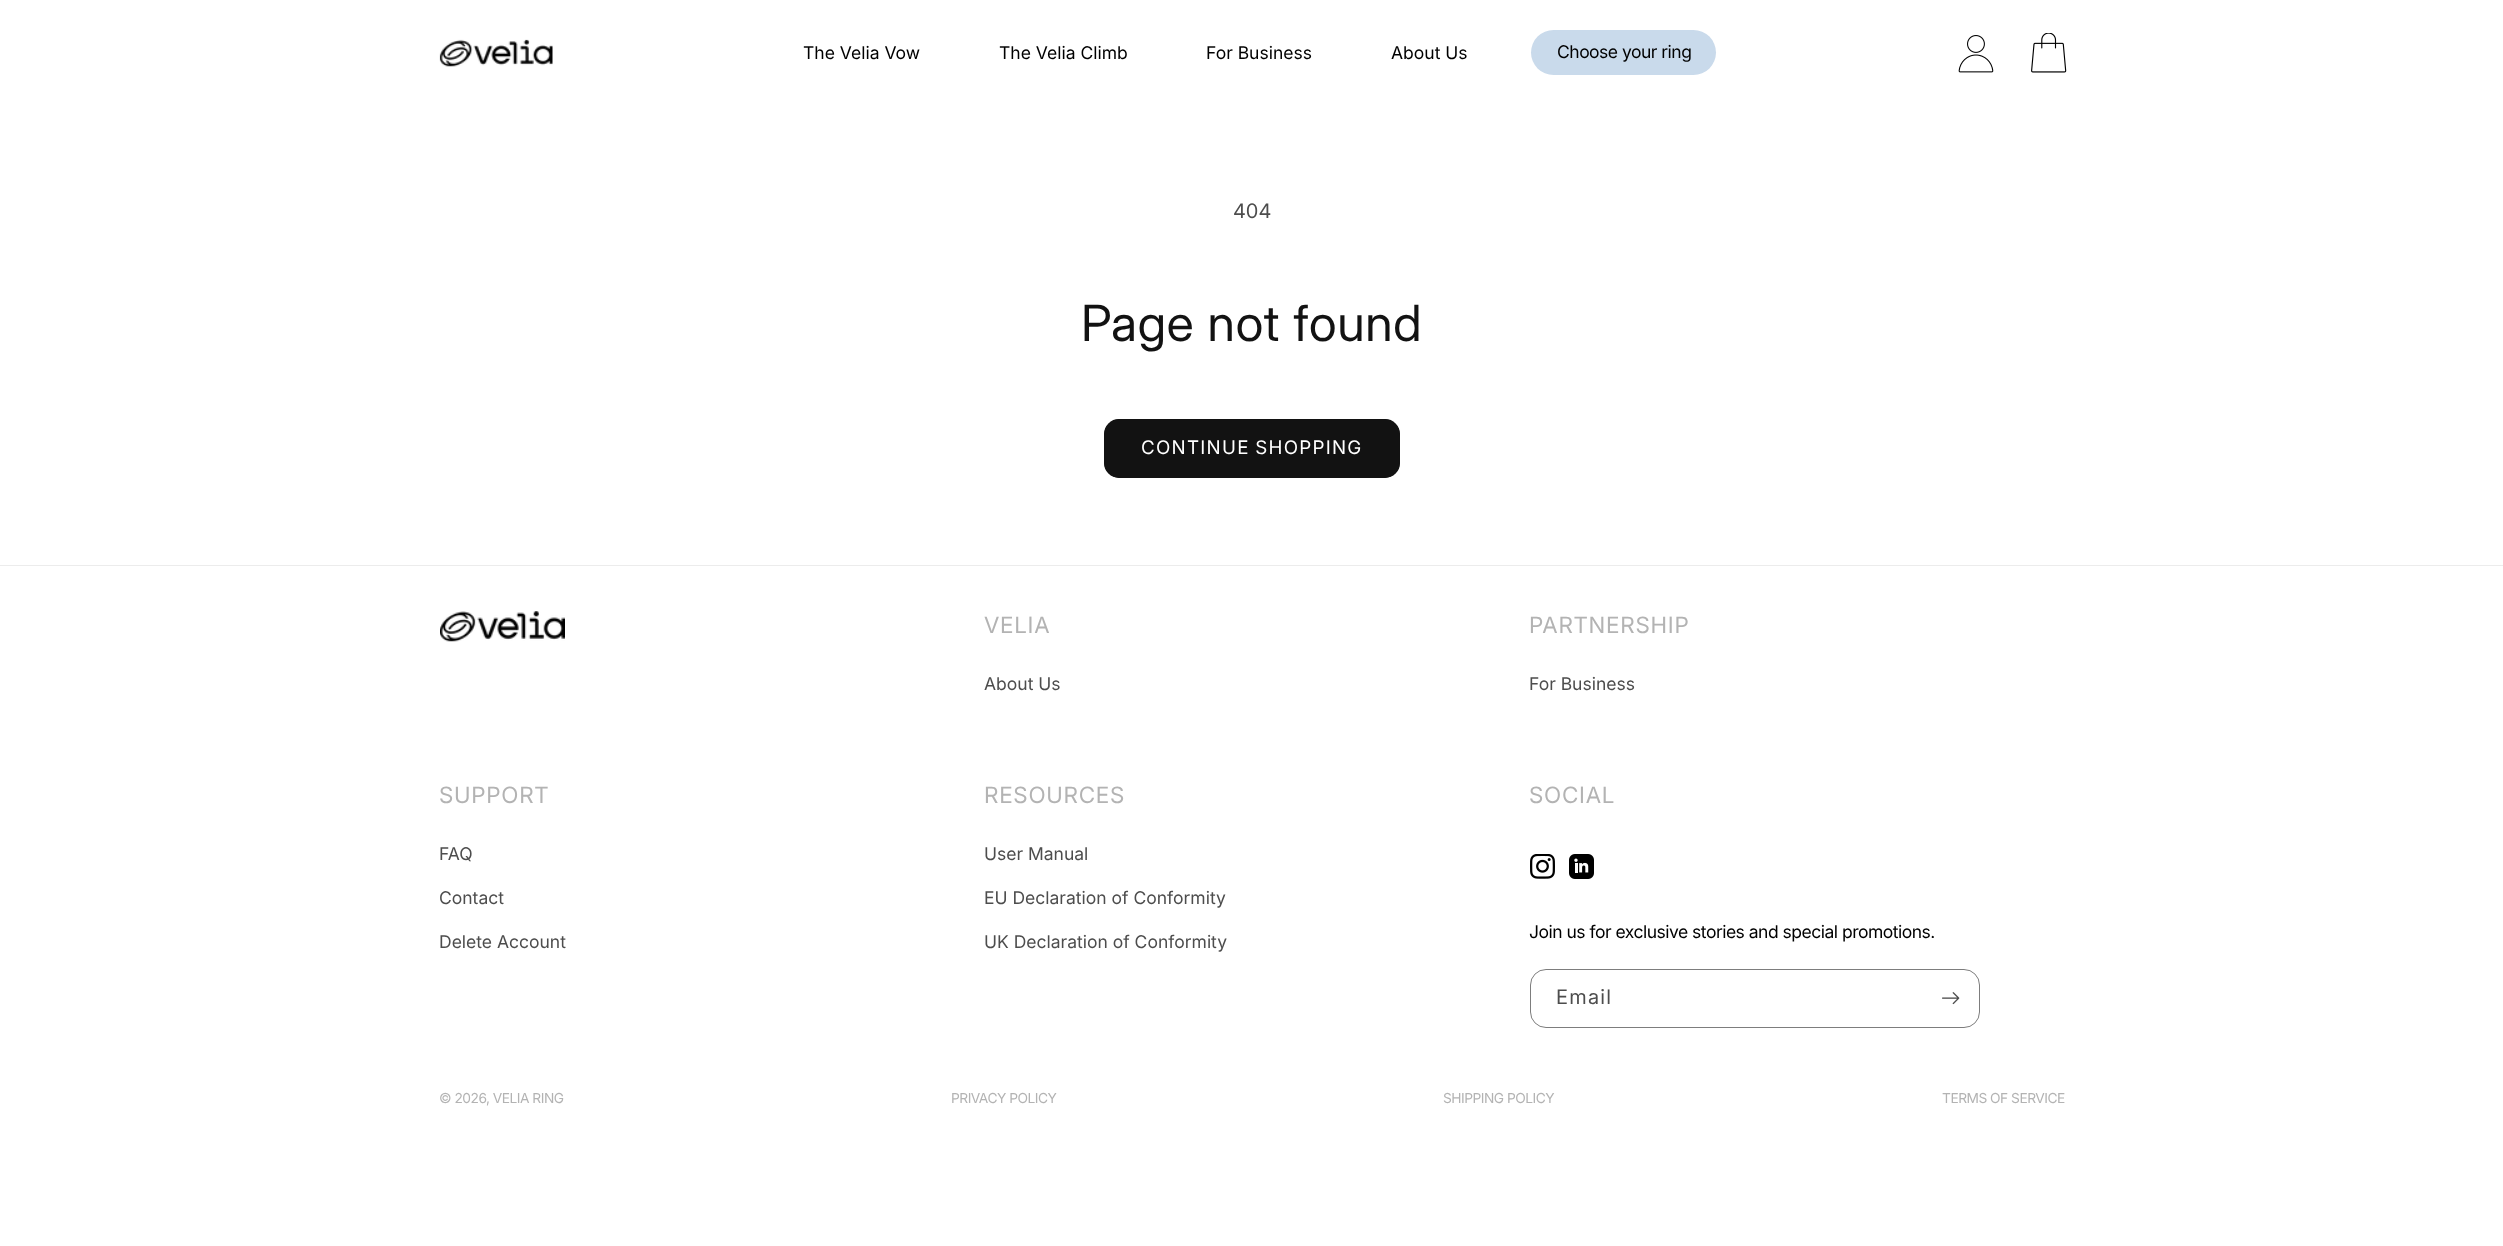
<?xml version="1.0" encoding="UTF-8"?>
<svg xmlns="http://www.w3.org/2000/svg" width="2503" height="1246">
    <rect width="100%" height="100%" fill="#FFFFFF"/>
    <image x="439" y="39" width="114" height="28" href="img_01.png"/>
    <text x="803" y="59" font-family="'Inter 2'" font-size="17.5" fill="#000000">The Velia Vow</text>
    <text x="999" y="59" font-family="'Inter 2'" font-size="17.5" fill="#000000">The Velia Climb</text>
    <text x="1206" y="59" font-family="'Inter 2'" font-size="17.5" fill="#000000">For Business</text>
    <text x="1391" y="59" font-family="'Inter 2'" font-size="17.5" fill="#000000">About Us</text>
    <rect x="1531" y="30" width="185" height="45" rx="22.5" fill="#C9DAEB"/>
    <text x="1557" y="58" font-family="'Inter 2'" font-size="17.5" letter-spacing="-0.5" fill="#000000">Choose your ring</text>
    <image x="1958" y="35" width="36" height="38" href="img_02.png"/>
    <image x="2031" y="33" width="36" height="40" href="img_03.png"/>
    <text x="1233" y="218" font-family="'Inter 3'" font-size="20" fill="#4D4D4D">404</text>
    <text x="1081" y="341" font-family="'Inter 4'" font-size="50" letter-spacing="0.75" fill="#121212">Page not found</text>
    <rect x="1104" y="419" width="296" height="59" rx="15" fill="#121212"/>
    <rect x="1104.5" y="419.5" width="295" height="58" rx="15.5" fill="none" stroke="#121212"/>
    <text x="1141" y="454" word-spacing="-1" font-family="'Inter 2'" font-size="18.75" letter-spacing="1.25" fill="#FFFFFF">CONTINUE SHOPPING</text>
    <rect x="0" y="565" width="2503" height="1" fill="#ECECEC"/>
    <image x="440" y="611" width="125" height="31" href="img_04.png"/>
    <text x="984" y="633" font-family="Inter" font-size="22.5" letter-spacing="0.75" fill="#B3B3B3">VELIA</text>
    <text x="984" y="690" font-family="'Inter 2'" font-size="17.5" fill="#4D4D4D">About Us</text>
    <text x="1529" y="633" font-family="Inter" font-size="22.5" letter-spacing="0.75" fill="#B3B3B3">PARTNERSHIP</text>
    <text x="1529" y="690" font-family="'Inter 2'" font-size="17.5" fill="#4D4D4D">For Business</text>
    <text x="439" y="803" font-family="Inter" font-size="22.5" letter-spacing="0.75" fill="#B3B3B3">SUPPORT</text>
    <text x="439" y="860" font-family="'Inter 2'" font-size="17.5" fill="#4D4D4D">FAQ</text>
    <text x="439" y="904" font-family="'Inter 2'" font-size="17.5" fill="#4D4D4D">Contact</text>
    <text x="439" y="948" font-family="'Inter 2'" font-size="17.5" fill="#4D4D4D">Delete Account</text>
    <text x="984" y="803" font-family="Inter" font-size="22.5" letter-spacing="0.75" fill="#B3B3B3">RESOURCES</text>
    <text x="984" y="860" font-family="'Inter 2'" font-size="17.5" fill="#4D4D4D">User Manual</text>
    <text x="984" y="904" font-family="'Inter 2'" font-size="17.5" fill="#4D4D4D">EU Declaration of Conformity</text>
    <text x="984" y="948" font-family="'Inter 2'" font-size="17.5" fill="#4D4D4D">UK Declaration of Conformity</text>
    <text x="1529" y="803" font-family="Inter" font-size="22.5" letter-spacing="0.75" fill="#B3B3B3">SOCIAL</text>
    <image x="1530" y="854" width="25" height="25" href="img_05.png"/>
    <image x="1569" y="854" width="25" height="25" href="img_06.png"/>
    <text x="1529" y="938" font-family="'Inter 2'" font-size="17.5" letter-spacing="-0.5" fill="#000000">Join us for exclusive stories and special promotions.</text>
    <rect x="1530.5" y="969.5" width="449" height="58" rx="15.5" fill="none" stroke="#7D7D7D"/>
    <text x="1556" y="1004" font-family="'Inter 3'" font-size="20" letter-spacing="1.25" fill="#4D4D4D">Email</text>
    <image x="1942" y="992" width="18" height="13" href="img_07.png"/>
    <text x="439" y="1103" font-family="'Inter 2'" font-size="13.75" letter-spacing="-0.5" fill="#B3B3B3">© 2026, VELIA RING</text>
    <text x="951" y="1103" font-family="'Inter 2'" font-size="13.75" letter-spacing="-0.5" fill="#B3B3B3">PRIVACY POLICY</text>
    <text x="1443" y="1103" font-family="'Inter 2'" font-size="13.75" letter-spacing="-0.5" fill="#B3B3B3">SHIPPING POLICY</text>
    <text x="1942" y="1103" font-family="'Inter 2'" font-size="13.75" letter-spacing="-0.5" fill="#B3B3B3">TERMS OF SERVICE</text>
</svg>
